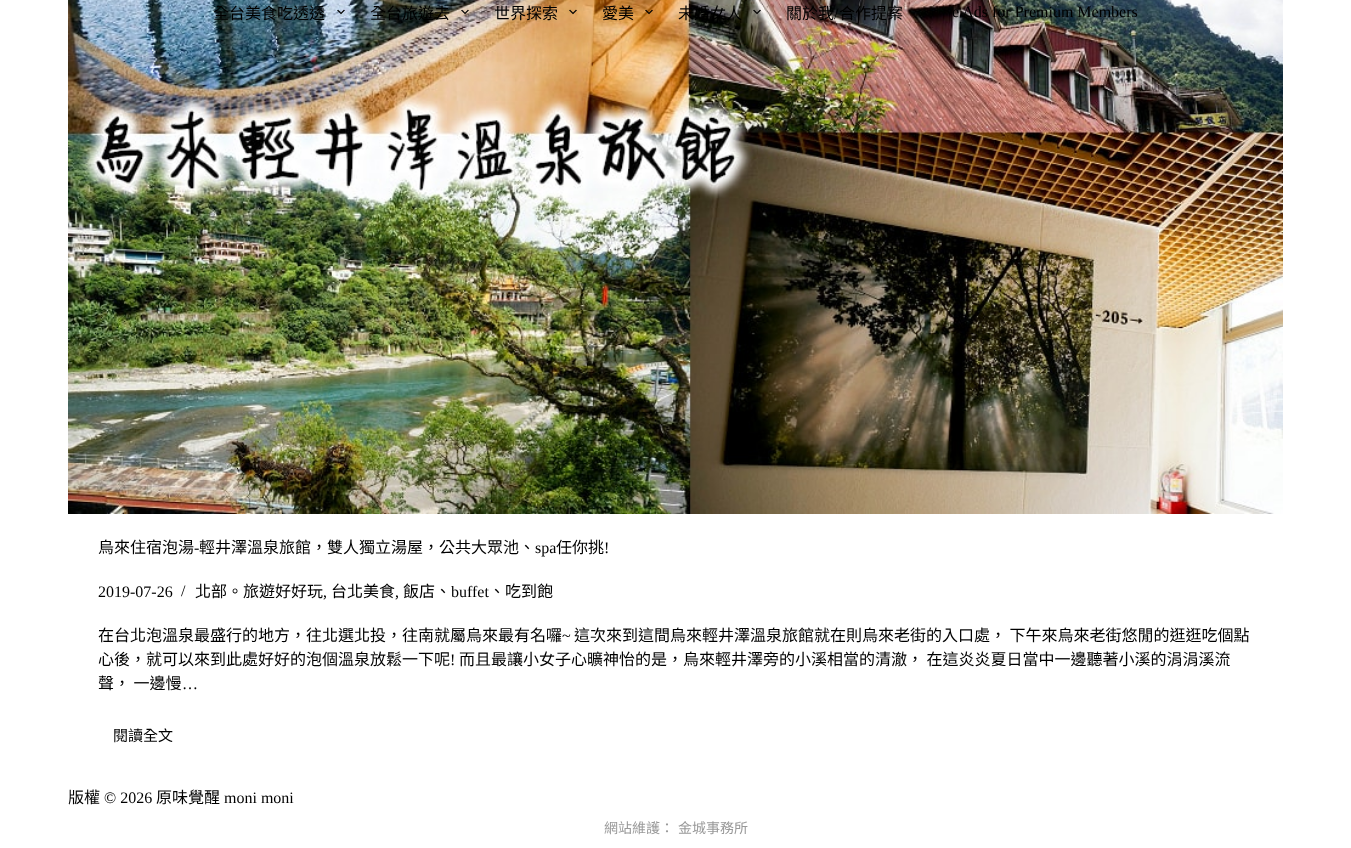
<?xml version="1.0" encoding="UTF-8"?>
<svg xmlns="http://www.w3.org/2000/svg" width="1351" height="848">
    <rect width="100%" height="100%" fill="#FFFFFF"/>
    <image x="68" y="0" width="1215" height="514" href="img_06.png"/>
    <text x="213" y="19" font-family="Noto Sans CJK TC" font-size="16" fill="#000000">全台美食吃透透</text>
    <image x="337" y="9" width="8" height="6" href="img_01.png"/>
    <text x="370" y="19" font-family="Noto Sans CJK TC" font-size="16" fill="#000000">全台旅遊去</text>
    <image x="461" y="9" width="8" height="6" href="img_02.png"/>
    <text x="494" y="19" font-family="Noto Sans CJK TC" font-size="16" fill="#000000">世界探索</text>
    <image x="569" y="9" width="8" height="6" href="img_03.png"/>
    <text x="602" y="19" font-family="Noto Sans CJK TC" font-size="16" fill="#000000">愛美</text>
    <image x="645" y="9" width="8" height="6" href="img_04.png"/>
    <text x="678" y="19" font-family="Noto Sans CJK TC" font-size="16" fill="#000000">未婚女人</text>
    <image x="753" y="9" width="8" height="6" href="img_05.png"/>
    <text x="786" y="19" font-family="Noto Sans CJK TC" font-size="16" fill="#000000">關於我</text>
    <text x="834" y="19" font-family="Liberation Serif" font-size="16" fill="#000000">/</text>
    <text x="839" y="19" font-family="Noto Sans CJK TC" font-size="16" fill="#000000">合作提案</text>
    <text x="952" y="17" font-family="Liberation Serif" font-size="16" fill="#000000">e Ads for Premium Members</text>
    <text x="98" y="553" font-family="Noto Sans CJK TC" font-size="16" fill="#000000">烏來住宿泡湯</text>
    <text x="194" y="553" font-family="Liberation Serif" font-size="16" fill="#000000">-</text>
    <text x="199" y="553" font-family="Noto Sans CJK TC" font-size="16" fill="#000000">輕井澤溫泉旅館，雙人獨立湯屋，公共大眾池、</text>
    <text x="535" y="553" font-family="Liberation Serif" font-size="16" fill="#000000">spa</text>
    <text x="556" y="553" font-family="Noto Sans CJK TC" font-size="16" fill="#000000">任你挑</text>
    <text x="604" y="553" font-family="Liberation Serif" font-size="16" fill="#000000">!</text>
    <text x="98" y="597" font-family="Liberation Serif" font-size="16" fill="#000000">2019-07-26</text>
    <text x="181" y="596" font-family="Liberation Serif" font-size="16" fill="#000000">/</text>
    <text x="195" y="597" font-family="Noto Sans CJK TC" font-size="16" fill="#000000">北部。旅遊好好玩</text>
    <text x="323" y="597" font-family="Liberation Serif" font-size="16" fill="#000000">,</text>
    <text x="331" y="597" font-family="Noto Sans CJK TC" font-size="16" fill="#000000">台北美食</text>
    <text x="395" y="597" font-family="Liberation Serif" font-size="16" fill="#000000">,</text>
    <text x="403" y="597" font-family="Noto Sans CJK TC" font-size="16" fill="#000000">飯店、</text>
    <text x="451" y="597" font-family="Liberation Serif" font-size="16" fill="#000000">buffet</text>
    <text x="489" y="597" font-family="Noto Sans CJK TC" font-size="16" fill="#000000">、吃到飽</text>
    <text x="98" y="641" font-family="Noto Sans CJK TC" font-size="16" fill="#000000">在台北泡溫泉最盛行的地方，往北選北投，往南就屬烏來最有名囉</text>
    <text x="562" y="641" font-family="Liberation Serif" font-size="16" fill="#000000">~</text>
    <text x="574" y="641" font-family="Noto Sans CJK TC" font-size="16" fill="#000000">這次來到這間烏來輕井澤溫泉旅館就在則烏來老街的入口處， 下午來烏來老街悠閒的逛逛吃個點</text>
    <text x="98" y="665" font-family="Noto Sans CJK TC" font-size="16" fill="#000000">心後，就可以來到此處好好的泡個溫泉放鬆一下呢</text>
    <text x="450" y="665" font-family="Liberation Serif" font-size="16" fill="#000000">!</text>
    <text x="459" y="665" font-family="Noto Sans CJK TC" font-size="16" fill="#000000">而且最讓小女子心曠神怡的是，烏來輕井澤旁的小溪相當的清澈， 在這炎炎夏日當中一邊聽著小溪的涓涓溪流</text>
    <text x="98" y="689" font-family="Noto Sans CJK TC" font-size="16" fill="#000000">聲， 一邊慢</text>
    <text x="182" y="689" font-family="Liberation Serif" font-size="16" fill="#000000">…</text>
    <text x="113" y="741" font-family="Noto Sans CJK TC" font-size="15" fill="#000000">閱讀全文</text>
    <text x="68" y="803" font-family="Noto Sans CJK TC" font-size="16" fill="#000000">版權</text>
    <text x="104" y="803" font-family="Liberation Serif" font-size="16" fill="#000000">© 2026</text>
    <text x="156" y="803" font-family="Noto Sans CJK TC" font-size="16" fill="#000000">原味覺醒</text>
    <text x="224" y="803" font-family="Liberation Serif" font-size="16" fill="#000000">moni moni</text>
    <text x="604" y="833" font-family="Noto Sans CJK TC" font-size="14" fill="#999999">網站維護：</text>
    <text x="678" y="833" font-family="Noto Sans CJK TC" font-size="14" fill="#999999">金城事務所</text>
</svg>
